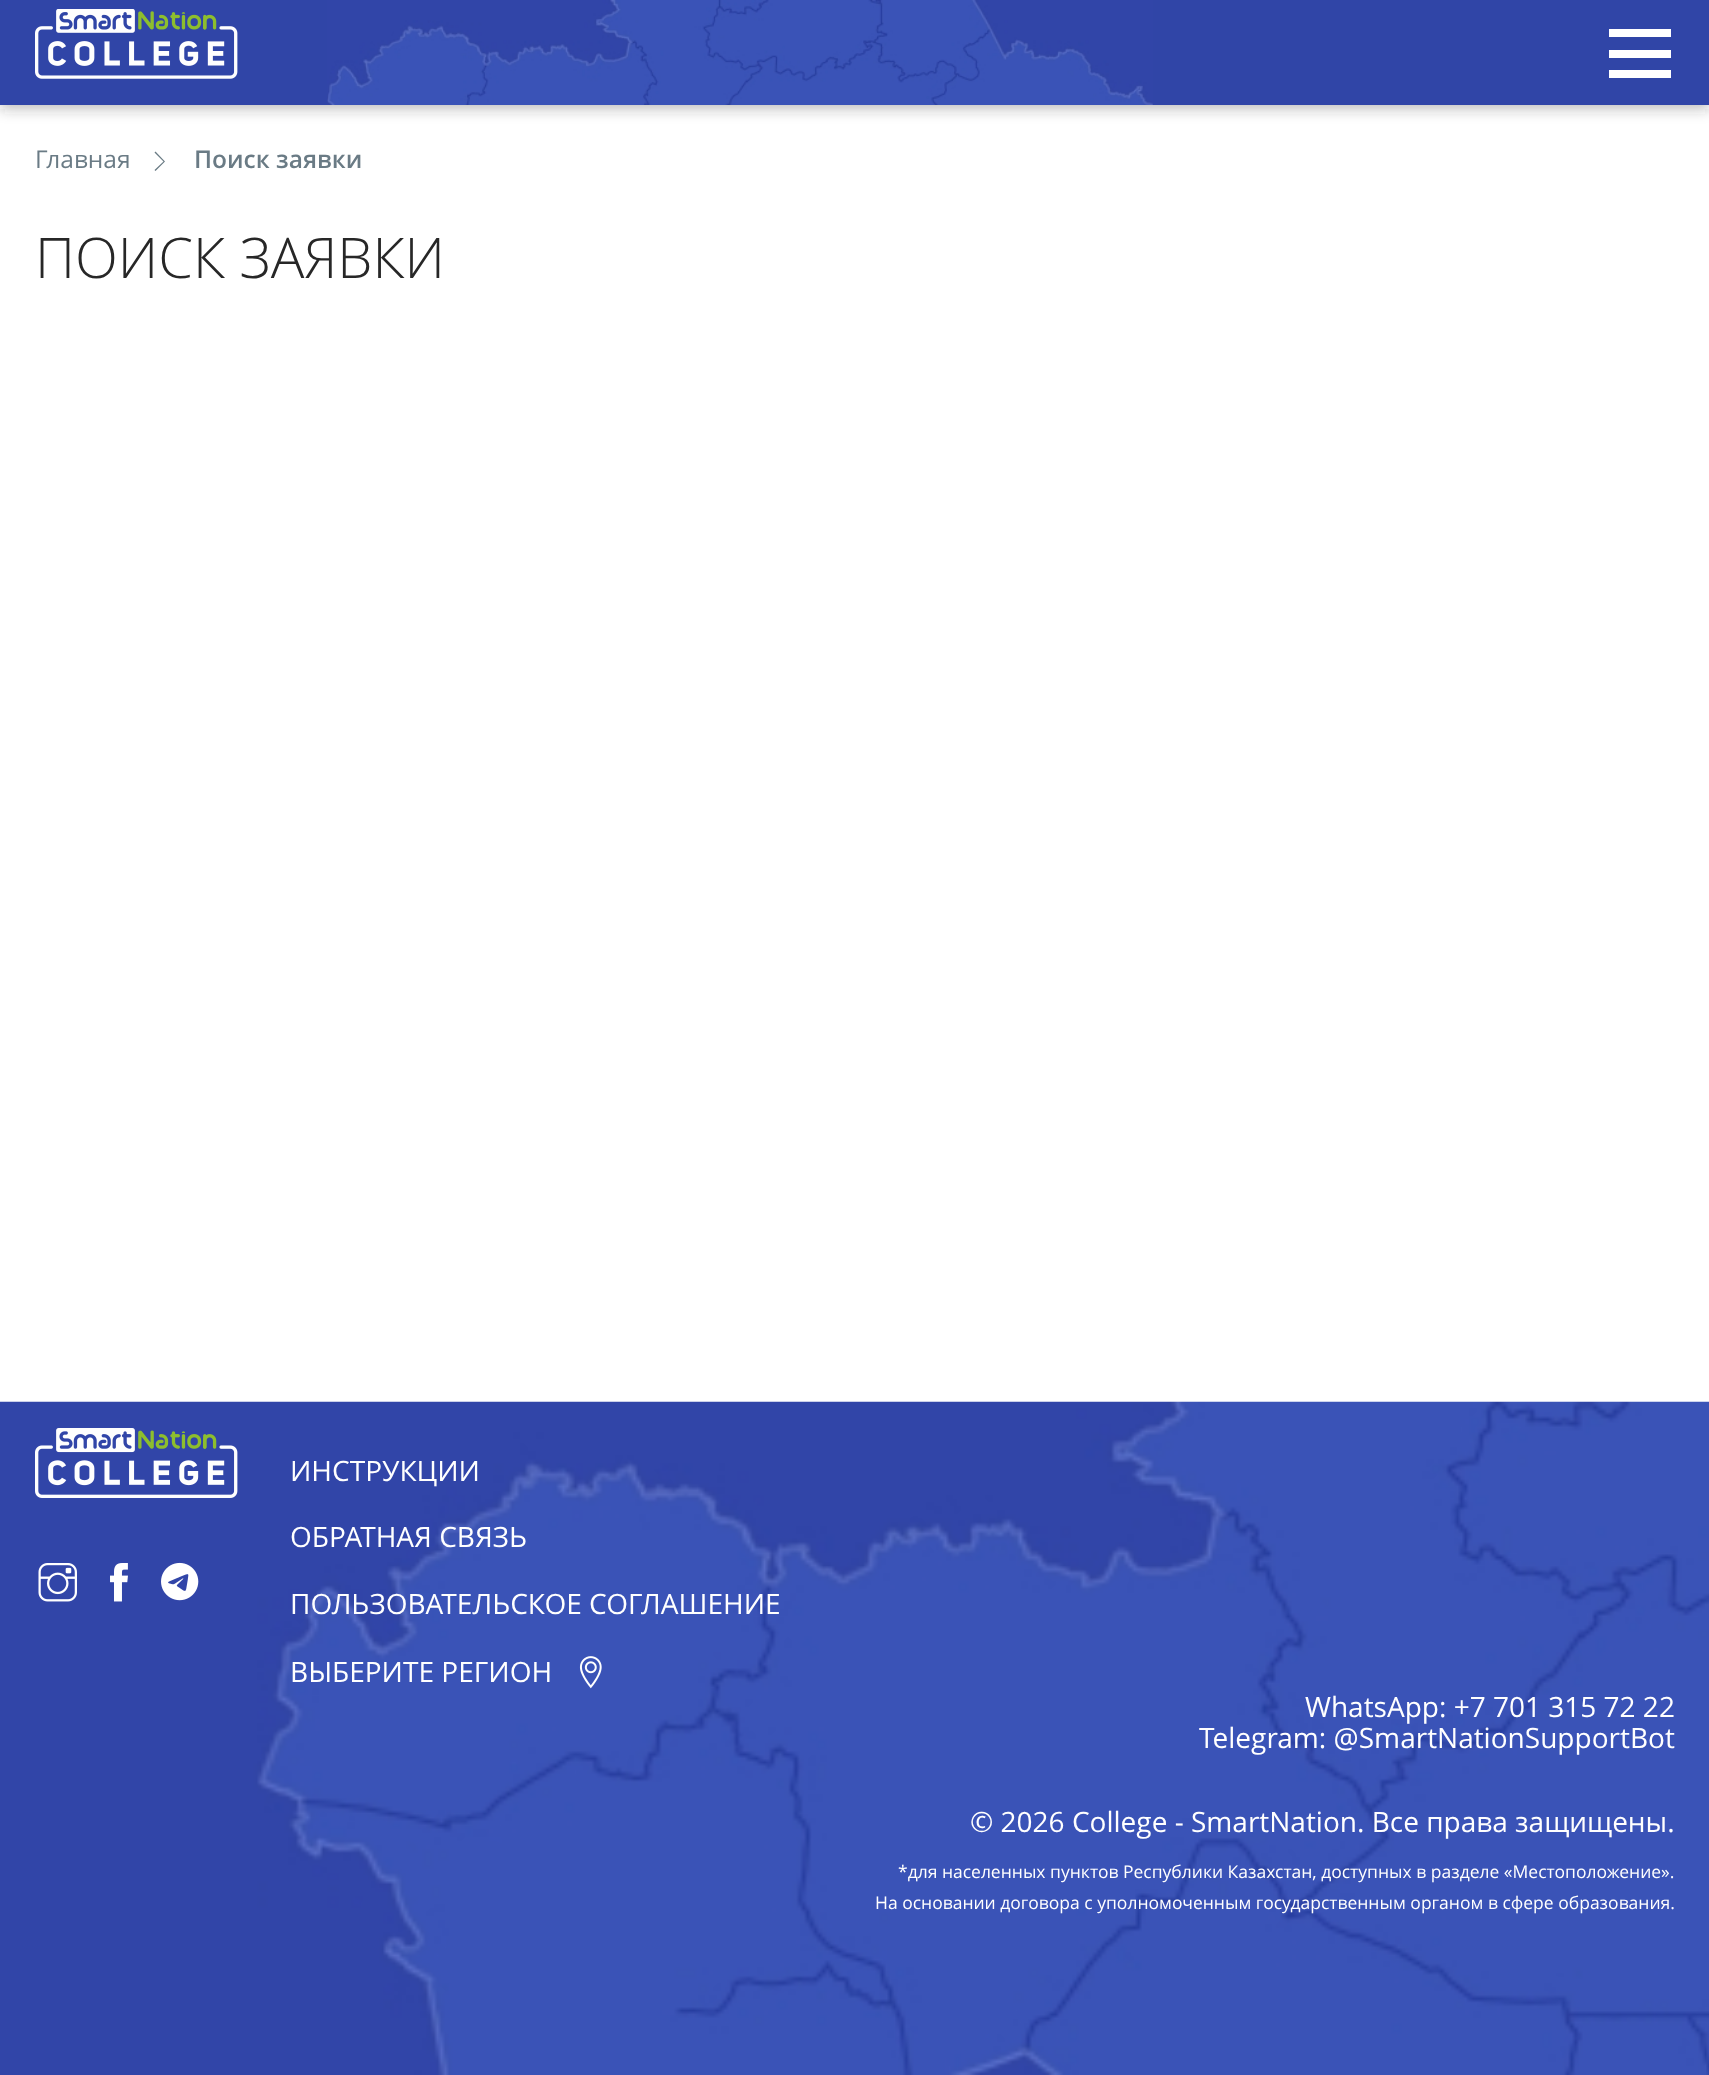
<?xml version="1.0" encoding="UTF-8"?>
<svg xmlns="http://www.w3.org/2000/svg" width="1709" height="2075">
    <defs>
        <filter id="blur1" x="-50%" y="-200%" width="200%" height="500%"><feGaussianBlur stdDeviation="7"/></filter>
    </defs>
    <rect width="100%" height="100%" fill="#FFFFFF"/>
    <rect x="0" y="4" width="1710" height="105" fill="#272727" fill-opacity="0.3" filter="url(#blur1)"/>
    <rect x="0" y="0" width="1709" height="105" fill="#3045A7"/>
    <image x="327" y="0" width="826" height="105" href="img_01.png"/>
    <image x="35" y="9" width="203" height="70" href="img_02.png"/>
    <path d="M 1671 29 V 37 H 1609 V 29 Z M 1609 58 H 1671 V 50 H 1609 Z M 1609 78 H 1671 V 70 H 1609 Z" fill="#FFFFFF"/>
    <text x="35" y="168" font-family="Open Sans" font-size="24.5" fill="#6A7B85">Главная</text>
    <path d="M 165 161.5 L 155.5 171 L 154.5 170 L 163.5 161.5 L 154.5 152.5 L 155.5 151.5 Z" fill="#6A7B85"/>
    <text x="194" y="168" font-family="Open Sans" font-size="24.5" font-weight="600" fill="#6A7B85">Поиск заявки</text>
    <text x="35" y="278" font-family="Open Sans" font-size="56" font-weight="300" fill="#272727">ПОИСК ЗАЯВКИ</text>
    <image x="0" y="1401" width="1709" height="674" href="img_03.png"/>
    <image x="35" y="1428" width="203" height="70" href="img_04.png"/>
    <text x="290" y="1481" font-family="Open Sans" font-size="28" fill="#FFFFFF">ИНСТРУКЦИИ</text>
    <text x="290" y="1547" font-family="Open Sans" font-size="28" fill="#FFFFFF">ОБРАТНАЯ СВЯЗЬ</text>
    <text x="290" y="1614" font-family="Open Sans" font-size="28" fill="#FFFFFF">ПОЛЬЗОВАТЕЛЬСКОЕ СОГЛАШЕНИЕ</text>
    <text x="290" y="1682" font-family="Open Sans" font-size="28" fill="#FFFFFF">ВЫБЕРИТЕ РЕГИОН</text>
    <image x="579" y="1656" width="23" height="33" href="img_05.png"/>
    <image x="38" y="1563" width="39" height="39" href="img_06.png"/>
    <image x="110" y="1563" width="18" height="39" href="img_07.png"/>
    <image x="161" y="1562" width="38" height="39" href="img_08.png"/>
    <text x="1305" y="1717" font-family="Open Sans" font-size="28" fill="#FFFFFF">WhatsApp: +7 701 315 72 22</text>
    <text x="1199" y="1748" font-family="Open Sans" font-size="28" fill="#FFFFFF">Telegram: @SmartNationSupportBot</text>
    <text x="970" y="1832" font-family="Open Sans" font-size="28" fill="#FFFFFF">© 2026 College - SmartNation. Все права защищены.</text>
    <text x="898" y="1878" font-family="Open Sans" font-size="17.5" fill="#FFFFFF">*для населенных пунктов Республики Казахстан, доступных в разделе «Местоположение».</text>
    <text x="875" y="1909" font-family="Open Sans" font-size="17.5" fill="#FFFFFF">На основании договора c уполномоченным государственным органом в сфере образования.</text>
</svg>
